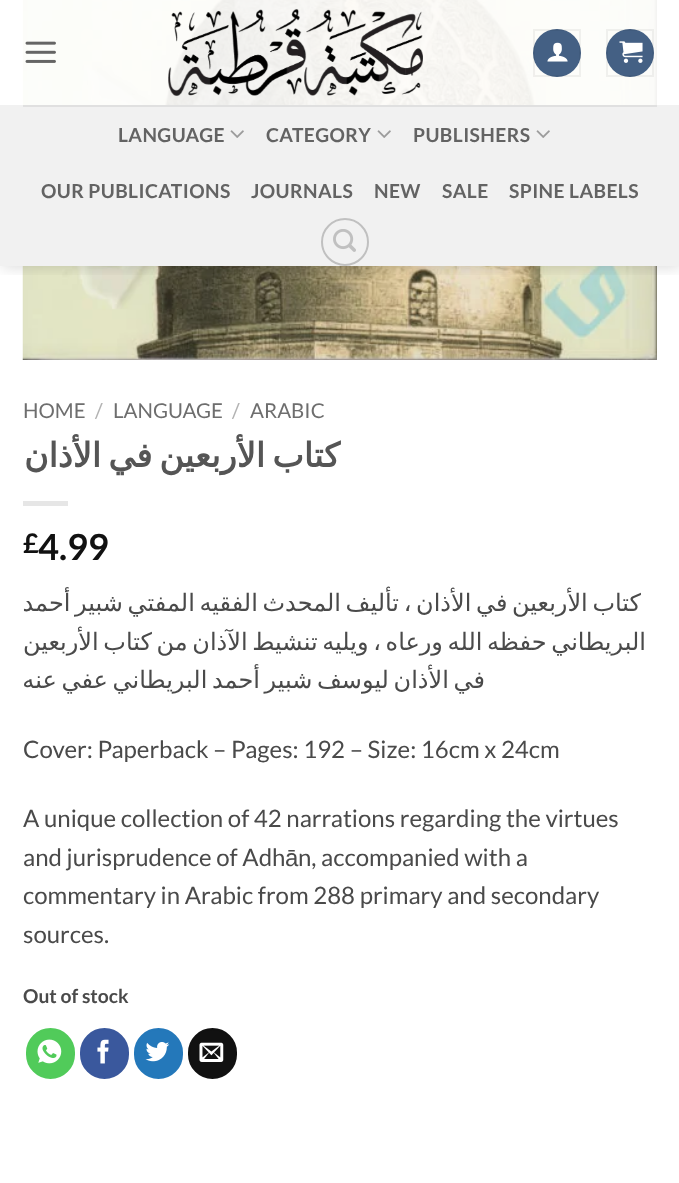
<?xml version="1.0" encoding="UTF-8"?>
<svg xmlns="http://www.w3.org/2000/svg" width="679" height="1183">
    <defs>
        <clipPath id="clip1"><rect x="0" y="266" width="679" height="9"/></clipPath>
        <filter id="blur1" x="-50%" y="-200%" width="200%" height="500%"><feGaussianBlur stdDeviation="7.5"/></filter>
    </defs>
    <rect width="100%" height="100%" fill="#FFFFFF"/>
    <image x="22" y="0" width="635" height="360" href="img_07.png"/>
    <g clip-path="url(#clip1)">
        <rect x="2" y="2" width="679" height="265" fill="#000000" fill-opacity="0.15" filter="url(#blur1)"/>
    </g>
    <rect x="22" y="0" width="635" height="105" fill="#FFFFFF" fill-opacity="0.9"/>
    <image x="25" y="41" width="31" height="22" href="img_01.png"/>
    <image x="168" y="9" width="255" height="87" href="img_02.png"/>
    <circle cx="557" cy="53" r="24" fill="#446084"/>
    <rect x="534" y="30" width="46" height="46" fill="none" stroke="#000000" stroke-opacity="0.05" stroke-width="2"/>
    <image x="547" y="42" width="21" height="20" href="img_03.png"/>
    <circle cx="630" cy="53" r="24" fill="#446084"/>
    <rect x="607" y="30" width="46" height="46" fill="none" stroke="#000000" stroke-opacity="0.05" stroke-width="2"/>
    <image x="619" y="41" width="24" height="22" href="img_04.png"/>
    <rect x="0" y="105" width="679" height="161" fill="#F1F1F1"/>
    <rect x="23" y="105" width="634" height="2" fill="#E0E0E0"/>
    <text x="118" y="142" font-family="Lato" font-size="19.25" font-weight="700" letter-spacing="0.4" fill="#636363">LANGUAGE</text>
    <image x="230" y="130" width="14" height="8" href="img_05.png"/>
    <text x="266" y="142" font-family="Lato" font-size="19.25" font-weight="700" letter-spacing="0.4" fill="#636363">CATEGORY</text>
    <image x="377" y="130" width="14" height="8" href="img_05.png"/>
    <text x="413" y="142" font-family="Lato" font-size="19.25" font-weight="700" letter-spacing="0.4" fill="#636363">PUBLISHERS</text>
    <image x="536" y="130" width="14" height="8" href="img_05.png"/>
    <text x="41" y="198" font-family="Lato" font-size="19.25" font-weight="700" letter-spacing="0.4" fill="#636363">OUR PUBLICATIONS</text>
    <text x="251" y="198" font-family="Lato" font-size="19.25" font-weight="700" letter-spacing="0.4" fill="#636363">JOURNALS</text>
    <text x="374" y="198" font-family="Lato" font-size="19.25" font-weight="700" letter-spacing="0.4" fill="#636363">NEW</text>
    <text x="442" y="198" font-family="Lato" font-size="19.25" font-weight="700" letter-spacing="0.4" fill="#636363">SALE</text>
    <text x="509" y="198" font-family="Lato" font-size="19.25" font-weight="700" letter-spacing="0.4" fill="#636363">SPINE LABELS</text>
    <circle cx="345" cy="242" r="23" fill="none" stroke="#C0C0C0" stroke-width="2"/>
    <image x="333" y="229" width="23" height="23" href="img_06.png"/>
    <text x="23" y="418" font-family="Lato" font-size="20.5" fill="#6E6E6E">HOME</text>
    <text x="95" y="418" font-family="Lato" font-size="20.5" fill="#B2B2B2">/</text>
    <text x="113" y="418" font-family="Lato" font-size="20.5" fill="#6E6E6E">LANGUAGE</text>
    <text x="232" y="418" font-family="Lato" font-size="20.5" fill="#B2B2B2">/</text>
    <text x="250" y="418" font-family="Lato" font-size="20.5" fill="#6E6E6E">ARABIC</text>
    <text x="340" y="467" word-spacing="-3.5" font-family="DejaVu Sans" font-size="33.5" font-weight="700" direction="rtl" fill="#555555">كتاب الأربعين في الأذان</text>
    <rect x="23" y="501" width="45" height="5" fill="#E6E6E6"/>
    <text x="23" y="553" font-family="Lato" font-size="27" font-weight="700" fill="#111111">£</text>
    <text x="38" y="560" font-family="Lato" font-size="36" font-weight="700" fill="#111111">4.99</text>
    <text x="641" y="611" word-spacing="-3" font-family="DejaVu Sans" font-size="24" direction="rtl" fill="#4A4A4A">كتاب الأربعين في الأذان ، تأليف المحدث الفقيه المفتي شبير أحمد</text>
    <text x="646" y="650" word-spacing="-3" font-family="DejaVu Sans" font-size="24" direction="rtl" fill="#4A4A4A">البريطاني حفظه الله ورعاه ، ويليه تنشيط الآذان من كتاب الأربعين</text>
    <text x="485" y="688" word-spacing="-3" font-family="DejaVu Sans" font-size="24" direction="rtl" fill="#4A4A4A">في الأذان ليوسف شبير أحمد البريطاني عفي عنه</text>
    <text x="23" y="758" font-family="Lato" font-size="24" fill="#4A4A4A">Cover: Paperback – Pages: 192 – Size: 16cm x 24cm</text>
    <text font-family="Lato" font-size="24" fill="#4A4A4A">
        <tspan x="23" y="827">A unique collection of 42 narrations regarding the virtues</tspan>
        <tspan x="23" y="866">and jurisprudence of Adh</tspan>
    </text>
    <text x="285" y="866" font-family="Liberation Sans" font-size="24" fill="#4A4A4A">ā</text>
    <text x="298" y="866" font-family="Lato" font-size="24" fill="#4A4A4A">n, accompanied with a</text>
    <text font-family="Lato" font-size="24" fill="#4A4A4A">
        <tspan x="23" y="904">commentary in Arabic from 288 primary and secondary</tspan>
        <tspan x="23" y="943">sources.</tspan>
    </text>
    <text x="23" y="1003" font-family="Lato" font-size="19.25" font-weight="700" fill="#4A4A4A">Out of stock</text>
    <rect x="27" y="1029" width="47" height="49" rx="23.5" fill="#51CB5A" stroke="#51CB5A" stroke-width="2"/>
    <image x="37" y="1039" width="25" height="25" href="img_08.png"/>
    <rect x="81" y="1029" width="47" height="49" rx="23.5" fill="#3A589D" stroke="#3A589D" stroke-width="2"/>
    <image x="97" y="1039" width="12" height="25" href="img_09.png"/>
    <rect x="135" y="1029" width="47" height="49" rx="23.5" fill="#2478BA" stroke="#2478BA" stroke-width="2"/>
    <image x="145" y="1042" width="25" height="20" href="img_10.png"/>
    <rect x="189" y="1029" width="47" height="49" rx="23.5" fill="#111111" stroke="#111111" stroke-width="2"/>
    <image x="199" y="1042" width="25" height="20" href="img_11.png"/>
</svg>
